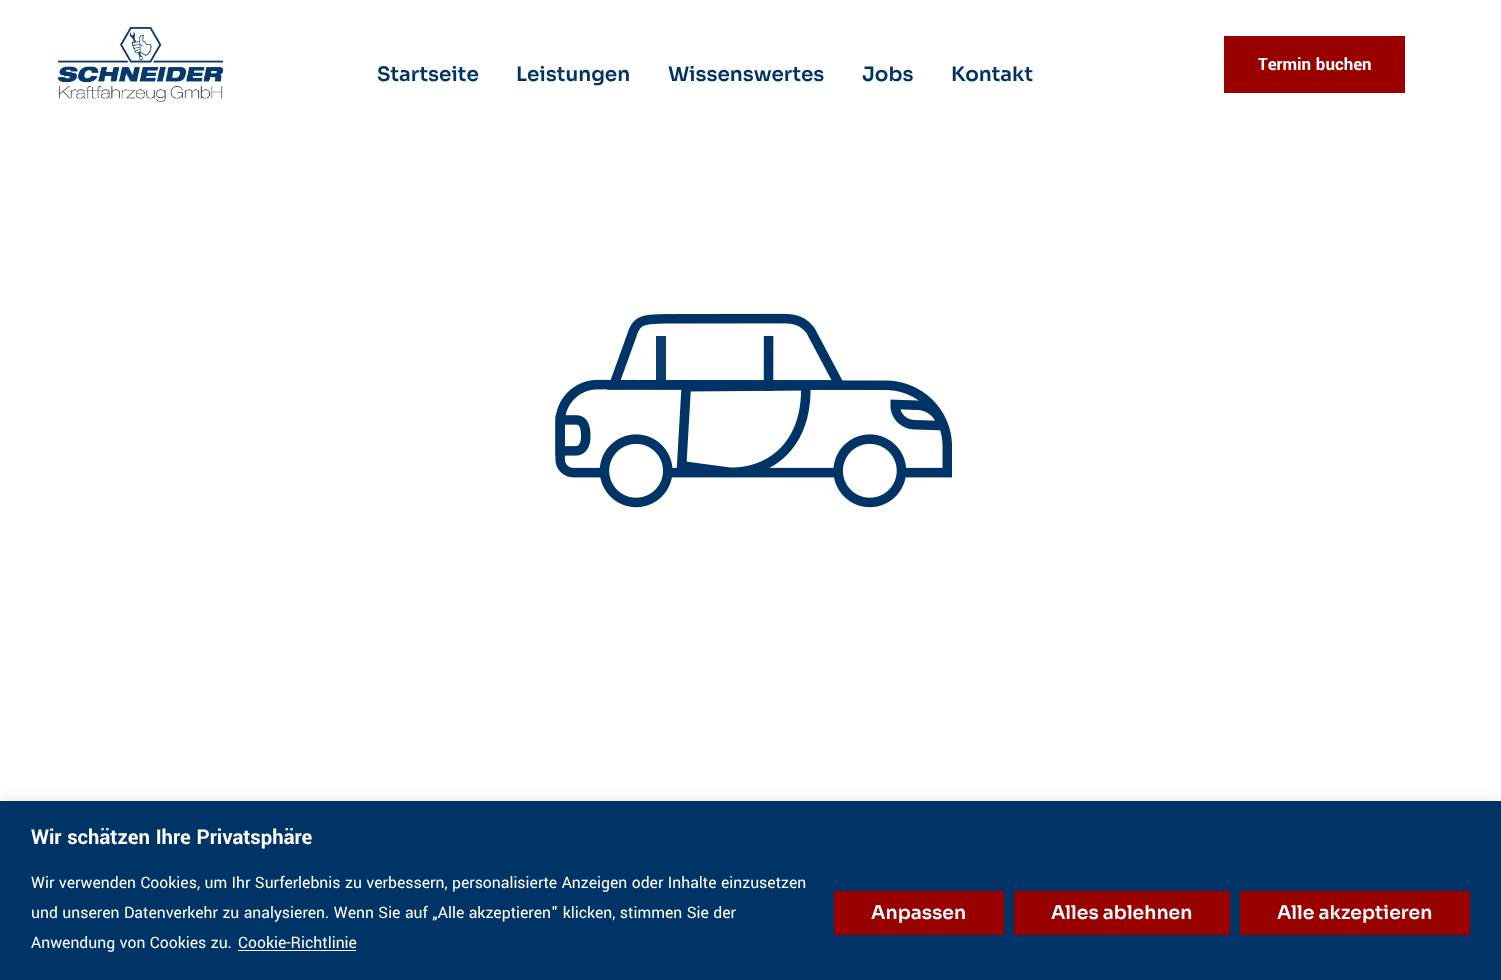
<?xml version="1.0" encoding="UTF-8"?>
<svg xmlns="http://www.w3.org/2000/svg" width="1501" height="980">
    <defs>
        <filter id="blur1" x="-50%" y="-200%" width="200%" height="500%"><feGaussianBlur stdDeviation="6"/></filter>
    </defs>
    <rect width="100%" height="100%" fill="#FFFFFF"/>
    <image x="58" y="27" width="166" height="75" href="img_01.png"/>
    <text x="377" y="81" font-family="Sora" font-size="20" font-weight="600" fill="#003366">Startseite</text>
    <text x="516" y="81" font-family="Sora" font-size="20" font-weight="600" fill="#003366">Leistungen</text>
    <text x="668" y="81" font-family="Sora" font-size="20" font-weight="600" fill="#003366">Wissenswertes</text>
    <text x="862" y="81" font-family="Sora" font-size="20" font-weight="600" fill="#003366">Jobs</text>
    <text x="951" y="81" font-family="Sora" font-size="20" font-weight="600" fill="#003366">Kontakt</text>
    <rect x="1224" y="36" width="181" height="57" fill="#990000"/>
    <text x="1258" y="70" font-family="Yantramanav" font-size="18.75" font-weight="700" fill="#FFFFFF">Termin buchen</text>
    <image x="555" y="313" width="397" height="195" href="img_02.png"/>
    <rect x="0" y="800" width="1501" height="179" fill="#ACABAB" fill-opacity="0.3" filter="url(#blur1)"/>
    <rect x="0" y="801" width="1501" height="179" fill="#003366"/>
    <text x="31" y="844" font-family="Yantramanav" font-size="22.5" font-weight="700" fill="#FFFFFF">Wir schätzen Ihre Privatsphäre</text>
    <text font-family="Yantramanav" font-size="17.5" fill="#FFFFFF">
        <tspan x="31" y="888">Wir verwenden Cookies, um Ihr Surferlebnis zu verbessern, personalisierte Anzeigen oder Inhalte einzusetzen</tspan>
        <tspan x="31" y="918">und unseren Datenverkehr zu analysieren. Wenn Sie auf „Alle akzeptieren" klicken, stimmen Sie der</tspan>
        <tspan x="31" y="948">Anwendung von Cookies zu.</tspan>
    </text>
    <text x="238" y="948" font-family="Yantramanav" font-size="17.5" fill="#FFFFFF">Cookie-Richtlinie</text>
    <rect x="238" y="950" width="118" height="1" fill="#FFFFFF"/>
    <rect x="834" y="891" width="170" height="44" fill="#990000"/>
    <text x="871" y="919" font-family="Sora" font-size="18.75" font-weight="600" fill="#FFFFFF">Anpassen</text>
    <rect x="1014" y="891" width="216" height="44" fill="#990000"/>
    <text x="1051" y="919" font-family="Sora" font-size="18.75" font-weight="600" fill="#FFFFFF">Alles ablehnen</text>
    <rect x="1240" y="891" width="230" height="44" fill="#990000"/>
    <text x="1277" y="919" font-family="Sora" font-size="18.75" font-weight="600" fill="#FFFFFF">Alle akzeptieren</text>
</svg>
